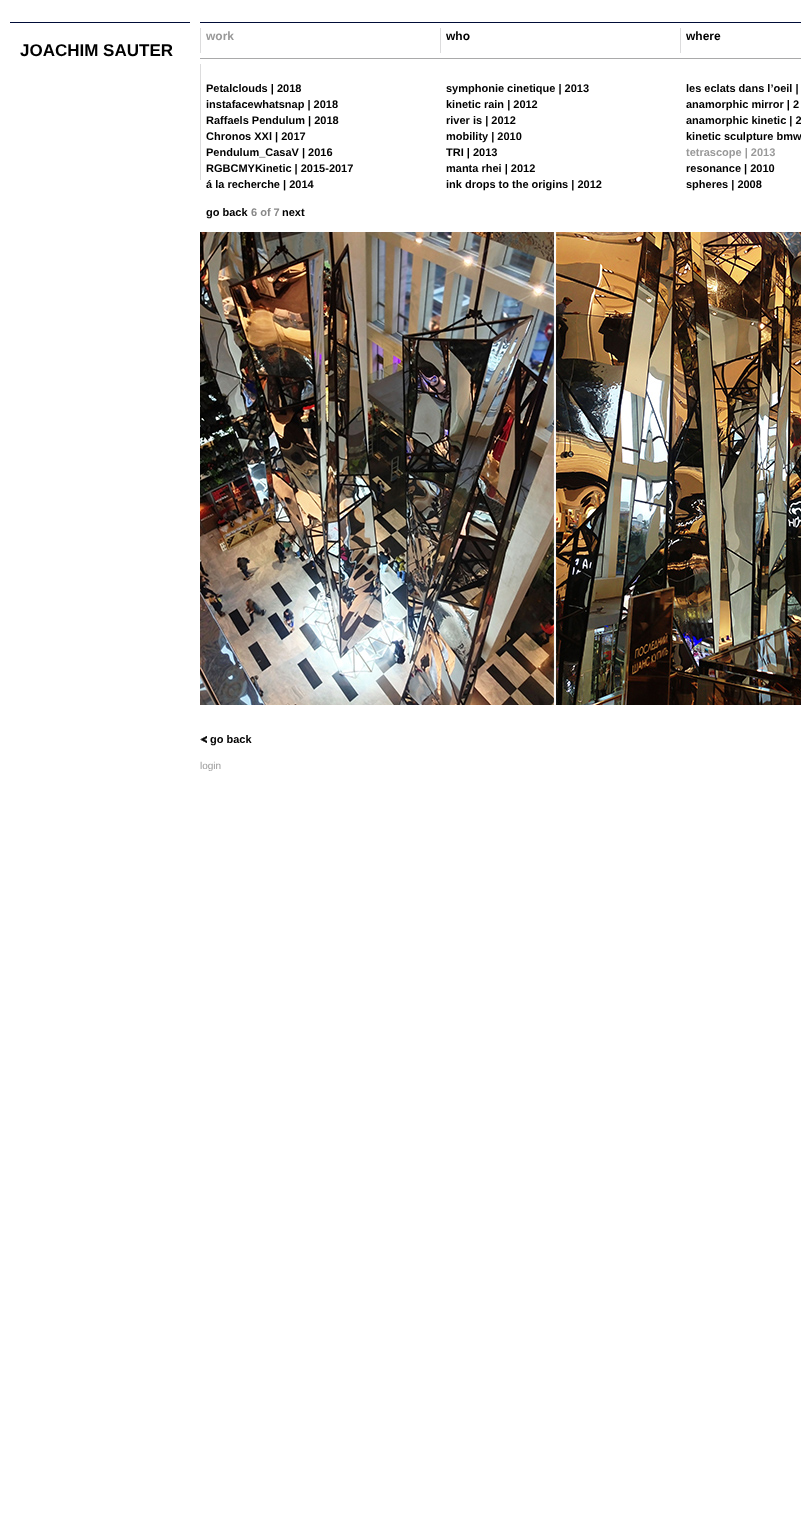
<?xml version="1.0" encoding="UTF-8"?>
<svg xmlns="http://www.w3.org/2000/svg" width="801" height="1526">
    <rect width="100%" height="100%" fill="#FFFFFF"/>
    <image x="10" y="22" width="791" height="158" href="img_01.png"/>
    <text x="206" y="40" font-family="Liberation Sans" font-size="12" font-weight="700" fill="#999999">work</text>
    <text x="446" y="40" font-family="Liberation Sans" font-size="12" font-weight="700" fill="#000000">who</text>
    <text x="686" y="40" font-family="Liberation Sans" font-size="12" font-weight="700" fill="#000000">where</text>
    <text x="20" y="56" font-family="Liberation Sans" font-size="17" font-weight="700" fill="#000000">JOACHIM SAUTER</text>
    <text font-family="Liberation Sans" font-size="11" font-weight="700" fill="#000000">
        <tspan x="206" y="92">Petalclouds | 2018</tspan>
        <tspan x="206" y="108">instafacewhatsnap | 2018</tspan>
        <tspan x="206" y="124">Raffaels Pendulum | 2018</tspan>
        <tspan x="206" y="140">Chronos XXl | 2017</tspan>
        <tspan x="206" y="156">Pendulum_CasaV | 2016</tspan>
        <tspan x="206" y="172">RGBCMYKinetic | 2015-2017</tspan>
        <tspan x="206" y="188">á la recherche | 2014</tspan>
    </text>
    <text font-family="Liberation Sans" font-size="11" font-weight="700" fill="#000000">
        <tspan x="446" y="92">symphonie cinetique | 2013</tspan>
        <tspan x="446" y="108">kinetic rain | 2012</tspan>
        <tspan x="446" y="124">river is | 2012</tspan>
        <tspan x="446" y="140">mobility | 2010</tspan>
        <tspan x="446" y="156">TRI | 2013</tspan>
        <tspan x="446" y="172">manta rhei | 2012</tspan>
        <tspan x="446" y="188">ink drops to the origins | 2012</tspan>
    </text>
    <text font-family="Liberation Sans" font-size="11" font-weight="700" fill="#000000">
        <tspan x="686" y="92">les eclats dans l’oeil |</tspan>
        <tspan x="686" y="108">anamorphic mirror | 2</tspan>
        <tspan x="686" y="124">anamorphic kinetic | 2</tspan>
        <tspan x="686" y="140">kinetic sculpture bmw</tspan>
    </text>
    <text x="686" y="156" font-family="Liberation Sans" font-size="11" font-weight="700" fill="#999999">tetrascope | 2013</text>
    <text font-family="Liberation Sans" font-size="11" font-weight="700" fill="#000000">
        <tspan x="686" y="172">resonance | 2010</tspan>
        <tspan x="686" y="188">spheres | 2008</tspan>
    </text>
    <text x="206" y="216" font-family="Liberation Sans" font-size="11" font-weight="700" fill="#000000">go back</text>
    <text x="251" y="216" font-family="Liberation Sans" font-size="11" font-weight="700" fill="#888888">6 of 7</text>
    <text x="282" y="216" font-family="Liberation Sans" font-size="11" font-weight="700" fill="#000000">next</text>
    <image x="200" y="232" width="601" height="473" href="img_02.png"/>
    <image x="200" y="736" width="7" height="7" href="img_03.png"/>
    <text x="210" y="743" font-family="Liberation Sans" font-size="11" font-weight="700" fill="#000000">go back</text>
    <text x="200" y="769" font-family="Liberation Sans" font-size="10" fill="#999999">login</text>
</svg>
